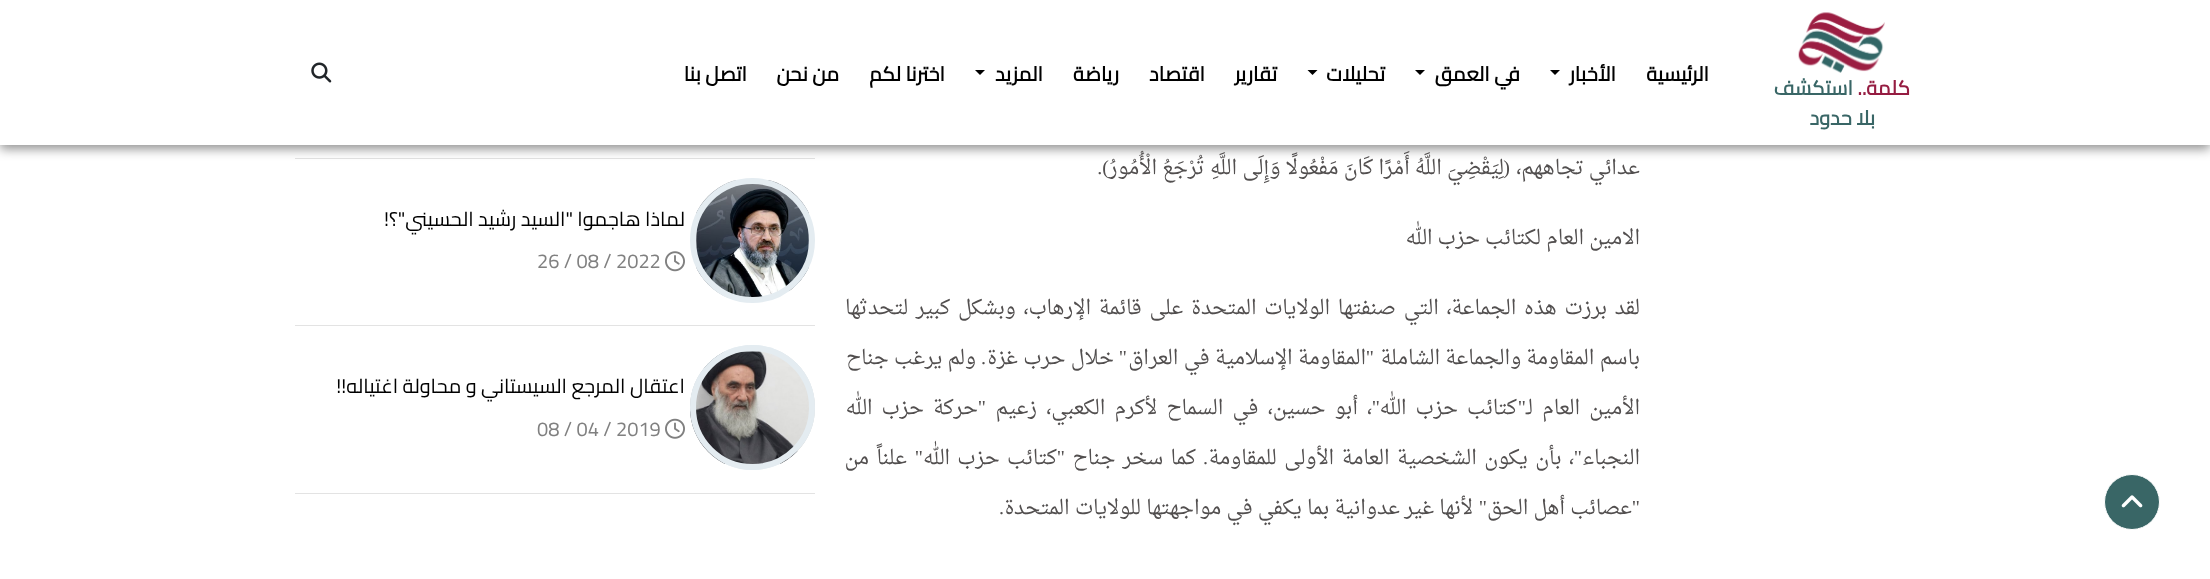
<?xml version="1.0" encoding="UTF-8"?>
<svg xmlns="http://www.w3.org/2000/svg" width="2210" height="579">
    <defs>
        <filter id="blur1" x="-50%" y="-200%" width="200%" height="500%"><feGaussianBlur stdDeviation="5.5"/></filter>
    </defs>
    <rect width="100%" height="100%" fill="#FFFFFF"/>
    <rect x="295" y="158" width="520" height="1" fill="#E3E3E3"/>
    <rect x="0" y="4" width="2210" height="145" fill="#000000" fill-opacity="0.43" filter="url(#blur1)"/>
    <rect x="0" y="0" width="2210" height="145" fill="#FFFFFF"/>
    <image x="1798" y="12" width="87" height="61" href="img_01.png"/>
    <text x="1910" y="95" font-family="Cairo" font-size="20" font-weight="700" direction="rtl" fill="#951C41">كلمة..</text>
    <text x="1853" y="95" font-family="Cairo" font-size="20" font-weight="700" direction="rtl" fill="#396666">استكشف</text>
    <text x="1875" y="125" font-family="Cairo" font-size="20" font-weight="700" direction="rtl" fill="#396666">بلا حدود</text>
    <text x="1709" y="81" font-family="Cairo" font-size="20" font-weight="700" direction="rtl" fill="#000000">الرئيسية</text>
    <text x="1616" y="81" font-family="Cairo" font-size="20" font-weight="700" direction="rtl" fill="#000000">الأخبار</text>
    <path d="M 1550 70 H 1560 L 1555 75 Z" fill="#000000"/>
    <text x="1520" y="81" font-family="Cairo" font-size="20" font-weight="700" direction="rtl" fill="#000000">في العمق</text>
    <path d="M 1415 70 H 1425 L 1420 75 Z" fill="#000000"/>
    <text x="1385" y="81" font-family="Cairo" font-size="20" font-weight="700" direction="rtl" fill="#000000">تحليلات</text>
    <path d="M 1307.5 70 H 1317.5 L 1312.5 75 Z" fill="#000000"/>
    <text x="1277" y="81" font-family="Cairo" font-size="20" font-weight="700" direction="rtl" fill="#000000">تقارير</text>
    <text x="1205" y="81" font-family="Cairo" font-size="20" font-weight="700" direction="rtl" fill="#000000">اقتصاد</text>
    <text x="1119" y="81" font-family="Cairo" font-size="20" font-weight="700" direction="rtl" fill="#000000">رياضة</text>
    <text x="1043" y="81" font-family="Cairo" font-size="20" font-weight="700" direction="rtl" fill="#000000">المزيد</text>
    <path d="M 975 70 H 985 L 980 75 Z" fill="#000000"/>
    <text x="945" y="81" font-family="Cairo" font-size="20" font-weight="700" direction="rtl" fill="#000000">اخترنا لكم</text>
    <text x="839" y="81" font-family="Cairo" font-size="20" font-weight="700" direction="rtl" fill="#000000">من نحن</text>
    <text x="747" y="81" font-family="Cairo" font-size="20" font-weight="700" direction="rtl" fill="#000000">اتصل بنا</text>
    <image x="311" y="62" width="21" height="21" href="img_02.png"/>
    <circle cx="2132" cy="502" r="27.5" fill="#396666" stroke="#FFFFFF"/>
    <image x="2121" y="495" width="22" height="13" href="img_03.png"/>
    <text x="1640" y="174" font-family="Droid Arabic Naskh" font-size="20" direction="rtl" fill="#524F4F">عدائي</text>
    <text x="1584" y="174" font-family="Droid Arabic Naskh" font-size="20" direction="rtl" fill="#524F4F">تجاههم،</text>
    <text x="1510" y="174" font-family="Liberation Serif" font-size="20" direction="rtl" fill="#524F4F">(</text>
    <text x="1504" y="174" font-family="Droid Arabic Naskh" font-size="20" direction="rtl" fill="#524F4F">لِيَقْضِيَ اللَّهُ أَمْرًا كَانَ مَفْعُولًا وَإِلَى</text>
    <text x="1237" y="174" font-family="Droid Arabic Naskh" font-size="20" direction="rtl" fill="#524F4F">اللَّهِ تُرْجَعُ الْأُمُورُ</text>
    <text x="1109" y="174" font-family="Liberation Serif" font-size="20" direction="rtl" fill="#524F4F">).</text>
    <text x="1640" y="244" font-family="Droid Arabic Naskh" font-size="20" direction="rtl" fill="#524F4F">الامين العام لكتائب حزب الله</text>
    <text x="1640" y="314" word-spacing="2.5" font-family="Droid Arabic Naskh" font-size="20" direction="rtl" fill="#524F4F">لقد برزت هذه الجماعة، التي صنفتها الولايات المتحدة على قائمة</text>
    <text x="1091" y="314" word-spacing="2.5" font-family="Droid Arabic Naskh" font-size="20" direction="rtl" fill="#524F4F">الإرهاب، وبشكل كبير لتحدثها</text>
    <text x="1640" y="364" font-family="Droid Arabic Naskh" font-size="20" direction="rtl" fill="#524F4F">باسم المقاومة والجماعة الشاملة</text>
    <text x="1374" y="364" font-family="Liberation Serif" font-size="20" direction="rtl" fill="#524F4F">"</text>
    <text x="1366" y="364" font-family="Droid Arabic Naskh" font-size="20" direction="rtl" fill="#524F4F">المقاومة الإسلامية في العراق</text>
    <text x="1127" y="364" font-family="Liberation Serif" font-size="20" direction="rtl" fill="#524F4F">"</text>
    <text x="1114" y="364" font-family="Droid Arabic Naskh" font-size="20" direction="rtl" fill="#524F4F">خلال حرب غزة</text>
    <text x="976" y="364" font-family="Droid Arabic Naskh" font-size="20" direction="rtl" fill="#524F4F">ولم يرغب جناح</text>
    <text x="986" y="364" font-family="Liberation Serif" font-size="20" direction="rtl" fill="#524F4F">.</text>
    <text x="1640" y="414" font-family="Droid Arabic Naskh" font-size="20" direction="rtl" fill="#524F4F">الأمين</text>
    <text x="1580" y="414" word-spacing="4" font-family="Droid Arabic Naskh" font-size="20" direction="rtl" fill="#524F4F">العام لـ</text>
    <text x="1526" y="414" font-family="Liberation Serif" font-size="20" direction="rtl" fill="#524F4F">"</text>
    <text x="1517" y="414" word-spacing="4" font-family="Droid Arabic Naskh" font-size="20" direction="rtl" fill="#524F4F">كتائب حزب الله</text>
    <text x="1380" y="414" font-family="Liberation Serif" font-size="20" direction="rtl" fill="#524F4F">"</text>
    <text x="1372" y="414" word-spacing="4" font-family="Droid Arabic Naskh" font-size="20" direction="rtl" fill="#524F4F">، أبو حسين، في السماح لأكرم الكعبي، زعيم</text>
    <text x="986" y="414" font-family="Liberation Serif" font-size="20" direction="rtl" fill="#524F4F">"</text>
    <text x="978" y="414" word-spacing="4" font-family="Droid Arabic Naskh" font-size="20" direction="rtl" fill="#524F4F">حركة حزب الله</text>
    <text x="1640" y="464" font-family="Droid Arabic Naskh" font-size="20" direction="rtl" fill="#524F4F">النجباء</text>
    <text x="1582" y="464" font-family="Liberation Serif" font-size="20" direction="rtl" fill="#524F4F">"</text>
    <text x="1574" y="464" word-spacing="2.25" font-family="Droid Arabic Naskh" font-size="20" direction="rtl" fill="#524F4F">، بأن يكون الشخصية العامة الأولى للمقاومة</text>
    <text x="1196" y="464" word-spacing="2.25" font-family="Droid Arabic Naskh" font-size="20" direction="rtl" fill="#524F4F">كما سخر جناح</text>
    <text x="1065" y="464" font-family="Liberation Serif" font-size="20" direction="rtl" fill="#524F4F">"</text>
    <text x="1057" y="464" word-spacing="2.25" font-family="Droid Arabic Naskh" font-size="20" direction="rtl" fill="#524F4F">كتائب حزب الله</text>
    <text x="923" y="464" font-family="Liberation Serif" font-size="20" direction="rtl" fill="#524F4F">"</text>
    <text x="907" y="464" word-spacing="2.25" font-family="Droid Arabic Naskh" font-size="20" direction="rtl" fill="#524F4F">علناً من</text>
    <text x="1208" y="464" font-family="Liberation Serif" font-size="20" direction="rtl" fill="#524F4F">.</text>
    <text x="1640" y="514" font-family="Liberation Serif" font-size="20" direction="rtl" fill="#524F4F">"</text>
    <text x="1632" y="514" font-family="Droid Arabic Naskh" font-size="20" direction="rtl" fill="#524F4F">عصائب أهل الحق</text>
    <text x="1487" y="514" font-family="Liberation Serif" font-size="20" direction="rtl" fill="#524F4F">"</text>
    <text x="1473" y="514" font-family="Droid Arabic Naskh" font-size="20" direction="rtl" fill="#524F4F">لأنها غير</text>
    <text x="1400" y="514" font-family="Droid Arabic Naskh" font-size="20" direction="rtl" fill="#524F4F">عدوانية بما يكفي في مواجهتها للولايات المتحدة</text>
    <text x="1004" y="514" font-family="Liberation Serif" font-size="20" direction="rtl" fill="#524F4F">.</text>
    <rect x="295" y="325" width="520" height="1" fill="#E3E3E3"/>
    <image x="696" y="180" width="113" height="118" href="img_04.png"/>
    <circle cx="752.5" cy="240.5" r="59.5" fill="none" stroke="#E4ECF1" stroke-width="6"/>
    <text x="685" y="226" font-family="Cairo" font-size="20" direction="rtl" fill="#000000">لماذا هاجموا "السيد رشيد الحسيني"؟!</text>
    <image x="665" y="251" width="20" height="21" href="img_05.png"/>
    <text x="537" y="268" font-family="Cairo" font-size="20" fill="#808080">26 / 08 / 2022</text>
    <rect x="295" y="493" width="520" height="1" fill="#E3E3E3"/>
    <circle cx="752.5" cy="407.5" r="62.5" fill="#E4ECF1"/>
    <image x="690" y="351" width="125" height="113" href="img_06.png"/>
    <circle cx="752.5" cy="407.5" r="59.5" fill="none" stroke="#E4ECF1" stroke-width="6"/>
    <text x="685" y="393" font-family="Cairo" font-size="20" direction="rtl" fill="#000000">اعتقال المرجع السيستاني و محاولة اغتياله!!</text>
    <image x="665" y="418" width="20" height="21" href="img_07.png"/>
    <text x="537" y="436" font-family="Cairo" font-size="20" fill="#808080">08 / 04 / 2019</text>
</svg>
